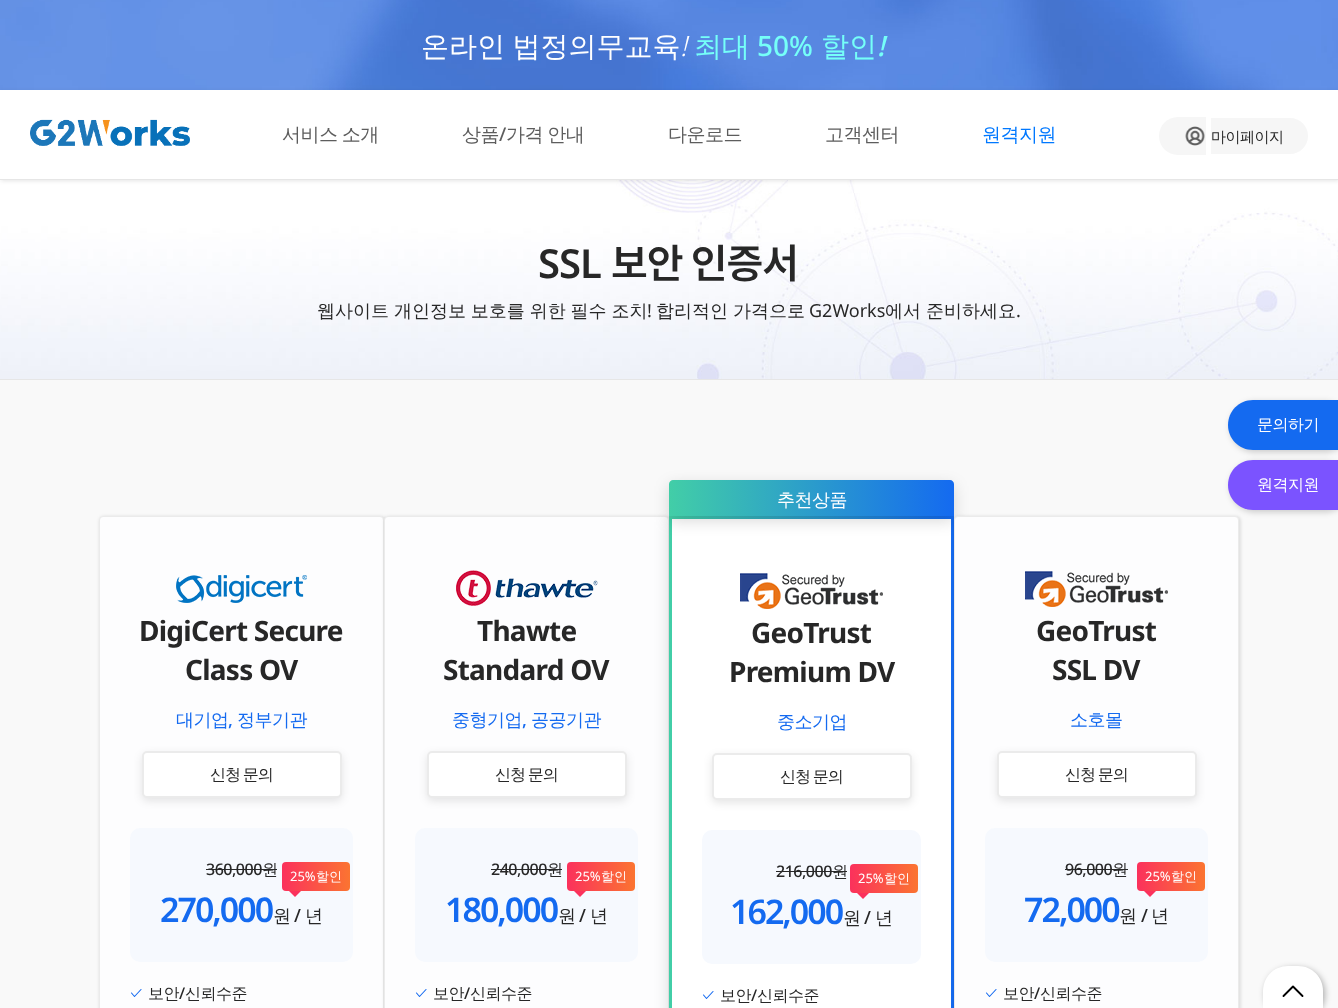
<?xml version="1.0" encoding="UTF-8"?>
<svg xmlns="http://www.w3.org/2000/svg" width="1338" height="1008">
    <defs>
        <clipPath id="clip1"><path d="M 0 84 H 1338 V 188 H 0 Z M 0 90 H 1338 V 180 H 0 Z" clip-rule="evenodd"/></clipPath>
        <filter id="blur1" x="-50%" y="-200%" width="200%" height="500%"><feGaussianBlur stdDeviation="2"/></filter>
        <filter id="blur2" x="-50%" y="-200%" width="200%" height="500%"><feGaussianBlur stdDeviation="1.5"/></filter>
        <filter id="blur3" x="-50%" y="-200%" width="200%" height="500%"><feGaussianBlur stdDeviation="4"/></filter>
        <linearGradient id="g1" gradientUnits="userSpaceOnUse" x1="282" y1="877" x2="350" y2="877"><stop offset="0" stop-color="#FB315C"/><stop offset="1" stop-color="#FB7431"/></linearGradient>
        <linearGradient id="g2" gradientUnits="userSpaceOnUse" x1="567" y1="877" x2="635" y2="877"><stop offset="0" stop-color="#FB315C"/><stop offset="1" stop-color="#FB7431"/></linearGradient>
        <filter id="blur4" x="-50%" y="-200%" width="200%" height="500%"><feGaussianBlur stdDeviation="7.5"/></filter>
        <linearGradient id="g3" gradientUnits="userSpaceOnUse" x1="954" y1="498" x2="669" y2="498"><stop offset="0" stop-color="#146AF0"/><stop offset="1" stop-color="#42CEA7"/></linearGradient>
        <linearGradient id="g4" gradientUnits="userSpaceOnUse" x1="850" y1="879" x2="918" y2="879"><stop offset="0" stop-color="#FB315C"/><stop offset="1" stop-color="#FB7431"/></linearGradient>
        <linearGradient id="g5" gradientUnits="userSpaceOnUse" x1="1137" y1="877" x2="1205" y2="877"><stop offset="0" stop-color="#FB315C"/><stop offset="1" stop-color="#FB7431"/></linearGradient>
        <filter id="blur5" x="-50%" y="-200%" width="200%" height="500%"><feGaussianBlur stdDeviation="3"/></filter>
    </defs>
    <rect width="100%" height="100%" fill="#FFFFFF"/>
    <image x="0" y="0" width="1338" height="90" href="img_01.png"/>
    <text x="421" y="56" word-spacing="-1" font-family="WenQuanYi Zen Hei" font-size="28" font-weight="500" fill="#FFFFFF">온라인 법정의무교육</text>
    <text x="680" y="56" font-family="Noto Sans" font-size="28" font-weight="300" font-style="italic" fill="#FFFFFF">!</text>
    <text x="694" y="56" font-family="WenQuanYi Zen Hei" font-size="28" font-weight="500" fill="#75FFF8">최대</text>
    <text x="757" y="56" font-family="Noto Sans" font-size="28" font-weight="500" fill="#75FFF8">50%</text>
    <text x="821" y="56" font-family="WenQuanYi Zen Hei" font-size="28" font-weight="500" fill="#75FFF8">할인</text>
    <text x="877" y="56" font-family="Noto Sans" font-size="28" font-weight="500" font-style="italic" fill="#75FFF8">!</text>
    <image x="0" y="180" width="1338" height="199" href="img_04.png"/>
    <g clip-path="url(#clip1)">
        <rect x="1" y="91" width="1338" height="90" fill="#000000" fill-opacity="0.1" filter="url(#blur1)"/>
    </g>
    <rect x="0" y="179" width="1338" height="1" fill="#E6E6E6"/>
    <image x="30" y="119" width="160" height="27" href="img_02.png"/>
    <text x="282" y="141" word-spacing="-1" font-family="WenQuanYi Zen Hei" font-size="19" font-weight="500" letter-spacing="-0.5" fill="#5D5D5D">서비스 소개</text>
    <text x="462" y="141" font-family="WenQuanYi Zen Hei" font-size="19" font-weight="500" letter-spacing="-0.5" fill="#5D5D5D">상품</text>
    <text x="499" y="141" font-family="Noto Sans" font-size="19" font-weight="500" letter-spacing="-0.5" fill="#5D5D5D">/</text>
    <text x="506" y="141" word-spacing="-1" font-family="WenQuanYi Zen Hei" font-size="19" font-weight="500" letter-spacing="-0.5" fill="#5D5D5D">가격 안내</text>
    <text x="668" y="141" font-family="WenQuanYi Zen Hei" font-size="19" font-weight="500" letter-spacing="-0.5" fill="#5D5D5D">다운로드</text>
    <text x="825" y="141" font-family="WenQuanYi Zen Hei" font-size="19" font-weight="500" letter-spacing="-0.5" fill="#5D5D5D">고객센터</text>
    <text x="982" y="141" font-family="WenQuanYi Zen Hei" font-size="19" font-weight="500" letter-spacing="-0.5" fill="#0078FF">원격지원</text>
    <path d="M 1178 117 H 1206 V 155 H 1178 C 1167.5 155 1159 146.5 1159 136 C 1159 125.5 1167.5 117 1178 117 Z" fill="#F6F6F6"/>
    <path d="M 1211 118 H 1290 C 1300 118 1308 126 1308 136 C 1308 146 1300 154 1290 154 H 1211 Z" fill="#F6F6F6"/>
    <image x="1185" y="126" width="20" height="20" href="img_03.png"/>
    <text x="1211" y="142" font-family="WenQuanYi Zen Hei" font-size="15" font-weight="500" letter-spacing="-0.5" fill="#272727">마이페이지</text>
    <rect x="0" y="379" width="1338" height="1" fill="#E6E6E6"/>
    <text x="538" y="278" font-family="Noto Sans" font-size="40" font-weight="600" letter-spacing="-1" fill="#272727">SSL</text>
    <text x="611" y="278" font-family="Noto Sans KR" font-size="40" font-weight="600" letter-spacing="-1" fill="#272727">보안 인증서</text>
    <text x="317" y="317" word-spacing="-0.5" font-family="WenQuanYi Zen Hei" font-size="18" font-weight="500" fill="#272727">웹사이트 개인정보 보호를 위한 필수 조치</text>
    <text x="647" y="317" font-family="Noto Sans" font-size="18" fill="#272727">!</text>
    <text x="656" y="317" word-spacing="-0.5" font-family="WenQuanYi Zen Hei" font-size="18" font-weight="500" fill="#272727">합리적인 가격으로</text>
    <text x="809" y="317" font-family="Noto Sans" font-size="18" fill="#272727">G2Works</text>
    <text x="885" y="317" word-spacing="-0.5" font-family="WenQuanYi Zen Hei" font-size="18" font-weight="500" fill="#272727">에서 준비하세요</text>
    <text x="1016" y="317" font-family="Noto Sans" font-size="18" fill="#272727">.</text>
    <rect x="0" y="380" width="1338" height="628" fill="#F9F9F9"/>
    <rect x="99" y="516" width="287" height="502" rx="5" fill="#000000" fill-opacity="0.1" filter="url(#blur2)"/>
    <rect x="99.5" y="516.5" width="284" height="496" rx="3.5" fill="#FDFDFE" stroke="#EBEBEB"/>
    <image x="176" y="575" width="131" height="28" href="img_05.png"/>
    <text x="139" y="641" font-family="Noto Sans" font-size="28" font-weight="700" letter-spacing="-0.75" fill="#272727">DigiCert Secure</text>
    <text x="185" y="680" font-family="Noto Sans" font-size="28" font-weight="700" letter-spacing="-0.75" fill="#272727">Class OV</text>
    <text x="176" y="726" font-family="WenQuanYi Zen Hei" font-size="18" font-weight="500" letter-spacing="-0.5" fill="#146AF0">대기업</text>
    <text x="228" y="726" font-family="Noto Sans" font-size="18" font-weight="500" letter-spacing="-0.5" fill="#146AF0">,</text>
    <text x="237" y="726" font-family="WenQuanYi Zen Hei" font-size="18" font-weight="500" letter-spacing="-0.5" fill="#146AF0">정부기관</text>
    <rect x="142" y="754" width="200" height="47" rx="5" fill="#000000" fill-opacity="0.1" filter="url(#blur3)"/>
    <rect x="143" y="752" width="198" height="45" rx="4" fill="#FFFFFF" stroke="#EBEBEB" stroke-width="2"/>
    <text x="210" y="780" word-spacing="-1" font-family="WenQuanYi Zen Hei" font-size="16" font-weight="500" letter-spacing="-1" fill="#272727">신청 문의</text>
    <rect x="130" y="828" width="223" height="134" rx="10" fill="#F6F9FE"/>
    <text x="206" y="875" font-family="Noto Sans" font-size="16" font-weight="500" letter-spacing="-0.5" fill="#272727">360,000</text>
    <text x="262" y="875" font-family="WenQuanYi Zen Hei" font-size="16" font-weight="500" letter-spacing="-0.5" fill="#272727">원</text>
    <rect x="206" y="869" width="71" height="1" fill="#272727"/>
    <rect x="282" y="862" width="68" height="29" rx="4" fill="url(#g1)"/>
    <text x="290" y="881" font-family="Noto Sans" font-size="13" fill="#FFFFFF">25%</text>
    <text x="316" y="881" font-family="WenQuanYi Zen Hei" font-size="13" font-weight="500" fill="#FFFFFF">할인</text>
    <path d="M 289 891 H 301 L 295 897 Z" fill="#FB315C"/>
    <text x="160" y="922" font-family="Noto Sans" font-size="34" font-weight="600" letter-spacing="-2" fill="#146AF0">270,000</text>
    <text x="273" y="922" font-family="WenQuanYi Zen Hei" font-size="18" font-weight="500" letter-spacing="-0.5" fill="#272727">원</text>
    <text x="294" y="922" font-family="Noto Sans" font-size="18" font-weight="500" letter-spacing="-0.5" fill="#272727">/</text>
    <text x="305" y="922" font-family="WenQuanYi Zen Hei" font-size="18" font-weight="500" letter-spacing="-0.5" fill="#272727">년</text>
    <path d="M 141 989.5 L 134.5 996.5 L 131.5 993" fill="none" stroke="#146AF0" stroke-width="1.1" stroke-linecap="round" stroke-linejoin="round"/>
    <text x="148" y="999" font-family="WenQuanYi Zen Hei" font-size="16" font-weight="500" letter-spacing="-0.5" fill="#272727">보안</text>
    <text x="179" y="999" font-family="Noto Sans" font-size="16" font-weight="500" letter-spacing="-0.5" fill="#272727">/</text>
    <text x="185" y="999" font-family="WenQuanYi Zen Hei" font-size="16" font-weight="500" letter-spacing="-0.5" fill="#272727">신뢰수준</text>
    <rect x="384" y="516" width="287" height="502" rx="5" fill="#000000" fill-opacity="0.1" filter="url(#blur2)"/>
    <rect x="384.5" y="516.5" width="284" height="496" rx="3.5" fill="#FDFDFE" stroke="#EBEBEB"/>
    <image x="456" y="570" width="142" height="36" href="img_06.png"/>
    <text x="477" y="641" font-family="Noto Sans" font-size="28" font-weight="700" letter-spacing="-0.75" fill="#272727">Thawte</text>
    <text x="443" y="680" font-family="Noto Sans" font-size="28" font-weight="700" letter-spacing="-0.75" fill="#272727">Standard OV</text>
    <text x="452" y="726" font-family="WenQuanYi Zen Hei" font-size="18" font-weight="500" letter-spacing="-0.5" fill="#146AF0">중형기업</text>
    <text x="522" y="726" font-family="Noto Sans" font-size="18" font-weight="500" letter-spacing="-0.5" fill="#146AF0">,</text>
    <text x="531" y="726" font-family="WenQuanYi Zen Hei" font-size="18" font-weight="500" letter-spacing="-0.5" fill="#146AF0">공공기관</text>
    <rect x="427" y="754" width="200" height="47" rx="5" fill="#000000" fill-opacity="0.1" filter="url(#blur3)"/>
    <rect x="428" y="752" width="198" height="45" rx="4" fill="#FFFFFF" stroke="#EBEBEB" stroke-width="2"/>
    <text x="495" y="780" word-spacing="-1" font-family="WenQuanYi Zen Hei" font-size="16" font-weight="500" letter-spacing="-1" fill="#272727">신청 문의</text>
    <rect x="415" y="828" width="223" height="134" rx="10" fill="#F6F9FE"/>
    <text x="491" y="875" font-family="Noto Sans" font-size="16" font-weight="500" letter-spacing="-0.5" fill="#272727">240,000</text>
    <text x="547" y="875" font-family="WenQuanYi Zen Hei" font-size="16" font-weight="500" letter-spacing="-0.5" fill="#272727">원</text>
    <rect x="491" y="869" width="71" height="1" fill="#272727"/>
    <rect x="567" y="862" width="68" height="29" rx="4" fill="url(#g2)"/>
    <text x="575" y="881" font-family="Noto Sans" font-size="13" fill="#FFFFFF">25%</text>
    <text x="601" y="881" font-family="WenQuanYi Zen Hei" font-size="13" font-weight="500" fill="#FFFFFF">할인</text>
    <path d="M 574 891 H 586 L 580 897 Z" fill="#FB315C"/>
    <text x="445" y="922" font-family="Noto Sans" font-size="34" font-weight="600" letter-spacing="-2" fill="#146AF0">180,000</text>
    <text x="558" y="922" font-family="WenQuanYi Zen Hei" font-size="18" font-weight="500" letter-spacing="-0.5" fill="#272727">원</text>
    <text x="579" y="922" font-family="Noto Sans" font-size="18" font-weight="500" letter-spacing="-0.5" fill="#272727">/</text>
    <text x="590" y="922" font-family="WenQuanYi Zen Hei" font-size="18" font-weight="500" letter-spacing="-0.5" fill="#272727">년</text>
    <path d="M 426 989.5 L 419.5 996.5 L 416.5 993" fill="none" stroke="#146AF0" stroke-width="1.1" stroke-linecap="round" stroke-linejoin="round"/>
    <text x="433" y="999" font-family="WenQuanYi Zen Hei" font-size="16" font-weight="500" letter-spacing="-0.5" fill="#272727">보안</text>
    <text x="464" y="999" font-family="Noto Sans" font-size="16" font-weight="500" letter-spacing="-0.5" fill="#272727">/</text>
    <text x="470" y="999" font-family="WenQuanYi Zen Hei" font-size="16" font-weight="500" letter-spacing="-0.5" fill="#272727">신뢰수준</text>
    <rect x="669" y="521" width="285" height="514" rx="4" fill="#000000" fill-opacity="0.15" filter="url(#blur4)"/>
    <rect x="672" y="519" width="279" height="489" fill="#FFFFFF"/>
    <image x="669" y="516" width="285" height="492" href="img_07.png"/>
    <rect x="669" y="485" width="285" height="36" rx="4" fill="#000000" fill-opacity="0.15" filter="url(#blur4)"/>
    <path d="M 673 480 H 950 C 952 480 954 482 954 484 V 516 H 669 V 484 C 669 482 671 480 673 480 Z" fill="url(#g3)"/>
    <text x="777" y="506" font-family="WenQuanYi Zen Hei" font-size="18" font-weight="500" letter-spacing="-0.5" fill="#FFFFFF">추천상품</text>
    <image x="740" y="573" width="143" height="36" href="img_08.png"/>
    <text x="751" y="643" font-family="Noto Sans" font-size="28" font-weight="700" letter-spacing="-0.75" fill="#272727">GeoTrust</text>
    <text x="729" y="682" font-family="Noto Sans" font-size="28" font-weight="700" letter-spacing="-0.75" fill="#272727">Premium DV</text>
    <text x="777" y="728" font-family="WenQuanYi Zen Hei" font-size="18" font-weight="500" letter-spacing="-0.5" fill="#146AF0">중소기업</text>
    <rect x="712" y="756" width="200" height="47" rx="5" fill="#000000" fill-opacity="0.1" filter="url(#blur3)"/>
    <rect x="713" y="754" width="198" height="45" rx="4" fill="#FFFFFF" stroke="#EBEBEB" stroke-width="2"/>
    <text x="780" y="782" word-spacing="-1" font-family="WenQuanYi Zen Hei" font-size="16" font-weight="500" letter-spacing="-1" fill="#272727">신청 문의</text>
    <rect x="702" y="830" width="219" height="134" rx="10" fill="#F6F9FE"/>
    <text x="776" y="877" font-family="Noto Sans" font-size="16" font-weight="500" letter-spacing="-0.5" fill="#272727">216,000</text>
    <text x="832" y="877" font-family="WenQuanYi Zen Hei" font-size="16" font-weight="500" letter-spacing="-0.5" fill="#272727">원</text>
    <rect x="776" y="871" width="71" height="1" fill="#272727"/>
    <rect x="850" y="864" width="68" height="29" rx="4" fill="url(#g4)"/>
    <text x="858" y="883" font-family="Noto Sans" font-size="13" fill="#FFFFFF">25%</text>
    <text x="884" y="883" font-family="WenQuanYi Zen Hei" font-size="13" font-weight="500" fill="#FFFFFF">할인</text>
    <path d="M 857 893 H 869 L 863 899 Z" fill="#FB315C"/>
    <text x="730" y="924" font-family="Noto Sans" font-size="34" font-weight="600" letter-spacing="-2" fill="#146AF0">162,000</text>
    <text x="843" y="924" font-family="WenQuanYi Zen Hei" font-size="18" font-weight="500" letter-spacing="-0.5" fill="#272727">원</text>
    <text x="864" y="924" font-family="Noto Sans" font-size="18" font-weight="500" letter-spacing="-0.5" fill="#272727">/</text>
    <text x="875" y="924" font-family="WenQuanYi Zen Hei" font-size="18" font-weight="500" letter-spacing="-0.5" fill="#272727">년</text>
    <path d="M 713 991.5 L 706.5 998.5 L 703.5 995" fill="none" stroke="#146AF0" stroke-width="1.1" stroke-linecap="round" stroke-linejoin="round"/>
    <text x="720" y="1001" font-family="WenQuanYi Zen Hei" font-size="16" font-weight="500" letter-spacing="-0.5" fill="#272727">보안</text>
    <text x="751" y="1001" font-family="Noto Sans" font-size="16" font-weight="500" letter-spacing="-0.5" fill="#272727">/</text>
    <text x="757" y="1001" font-family="WenQuanYi Zen Hei" font-size="16" font-weight="500" letter-spacing="-0.5" fill="#272727">신뢰수준</text>
    <rect x="954" y="516" width="287" height="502" rx="5" fill="#000000" fill-opacity="0.1" filter="url(#blur2)"/>
    <rect x="954.5" y="516.5" width="284" height="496" rx="3.5" fill="#FDFDFE" stroke="#EBEBEB"/>
    <image x="1025" y="571" width="143" height="36" href="img_09.png"/>
    <text x="1036" y="641" font-family="Noto Sans" font-size="28" font-weight="700" letter-spacing="-0.75" fill="#272727">GeoTrust</text>
    <text x="1052" y="680" font-family="Noto Sans" font-size="28" font-weight="700" letter-spacing="-0.75" fill="#272727">SSL DV</text>
    <text x="1070" y="726" font-family="WenQuanYi Zen Hei" font-size="18" font-weight="500" letter-spacing="-0.5" fill="#146AF0">소호몰</text>
    <rect x="997" y="754" width="200" height="47" rx="5" fill="#000000" fill-opacity="0.1" filter="url(#blur3)"/>
    <rect x="998" y="752" width="198" height="45" rx="4" fill="#FFFFFF" stroke="#EBEBEB" stroke-width="2"/>
    <text x="1065" y="780" word-spacing="-1" font-family="WenQuanYi Zen Hei" font-size="16" font-weight="500" letter-spacing="-1" fill="#272727">신청 문의</text>
    <rect x="985" y="828" width="223" height="134" rx="10" fill="#F6F9FE"/>
    <text x="1065" y="875" font-family="Noto Sans" font-size="16" font-weight="500" letter-spacing="-0.5" fill="#272727">96,000</text>
    <text x="1112" y="875" font-family="WenQuanYi Zen Hei" font-size="16" font-weight="500" letter-spacing="-0.5" fill="#272727">원</text>
    <rect x="1065" y="869" width="63" height="1" fill="#272727"/>
    <rect x="1137" y="862" width="68" height="29" rx="4" fill="url(#g5)"/>
    <text x="1145" y="881" font-family="Noto Sans" font-size="13" fill="#FFFFFF">25%</text>
    <text x="1171" y="881" font-family="WenQuanYi Zen Hei" font-size="13" font-weight="500" fill="#FFFFFF">할인</text>
    <path d="M 1144 891 H 1156 L 1150 897 Z" fill="#FB315C"/>
    <text x="1024" y="922" font-family="Noto Sans" font-size="34" font-weight="600" letter-spacing="-2" fill="#146AF0">72,000</text>
    <text x="1119" y="922" font-family="WenQuanYi Zen Hei" font-size="18" font-weight="500" letter-spacing="-0.5" fill="#272727">원</text>
    <text x="1141" y="922" font-family="Noto Sans" font-size="18" font-weight="500" letter-spacing="-0.5" fill="#272727">/</text>
    <text x="1151" y="922" font-family="WenQuanYi Zen Hei" font-size="18" font-weight="500" letter-spacing="-0.5" fill="#272727">년</text>
    <path d="M 996 989.5 L 989.5 996.5 L 986.5 993" fill="none" stroke="#146AF0" stroke-width="1.1" stroke-linecap="round" stroke-linejoin="round"/>
    <text x="1003" y="999" font-family="WenQuanYi Zen Hei" font-size="16" font-weight="500" letter-spacing="-0.5" fill="#272727">보안</text>
    <text x="1034" y="999" font-family="Noto Sans" font-size="16" font-weight="500" letter-spacing="-0.5" fill="#272727">/</text>
    <text x="1040" y="999" font-family="WenQuanYi Zen Hei" font-size="16" font-weight="500" letter-spacing="-0.5" fill="#272727">신뢰수준</text>
    <rect x="1230" y="402" width="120" height="50" rx="25" fill="#000000" fill-opacity="0.2" filter="url(#blur5)"/>
    <path d="M 1253 400 H 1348 V 450 H 1253 C 1239 450 1228 439 1228 425 C 1228 411 1239 400 1253 400 Z" fill="#146AF0"/>
    <text x="1257" y="430" font-family="WenQuanYi Zen Hei" font-size="16" font-weight="500" letter-spacing="-0.5" fill="#FFFFFF">문의하기</text>
    <rect x="1230" y="462" width="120" height="50" rx="25" fill="#000000" fill-opacity="0.2" filter="url(#blur5)"/>
    <path d="M 1253 460 H 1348 V 510 H 1253 C 1239 510 1228 499 1228 485 C 1228 471 1239 460 1253 460 Z" fill="#7B53FF"/>
    <text x="1257" y="490" font-family="WenQuanYi Zen Hei" font-size="16" font-weight="500" letter-spacing="-0.5" fill="#FFFFFF">원격지원</text>
    <rect x="1265" y="968" width="60" height="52" rx="25" fill="#000000" fill-opacity="0.3" filter="url(#blur5)"/>
    <path d="M 1288 966 H 1298 C 1312 966 1323 977 1323 991 V 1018 H 1263 V 991 C 1263 977 1274 966 1288 966 Z" fill="#FFFFFF"/>
    <path d="M 1283.5 996 L 1293 986.5 L 1302.5 996" fill="none" stroke="#000000" stroke-width="1.9" stroke-linecap="round" stroke-linejoin="round"/>
</svg>
